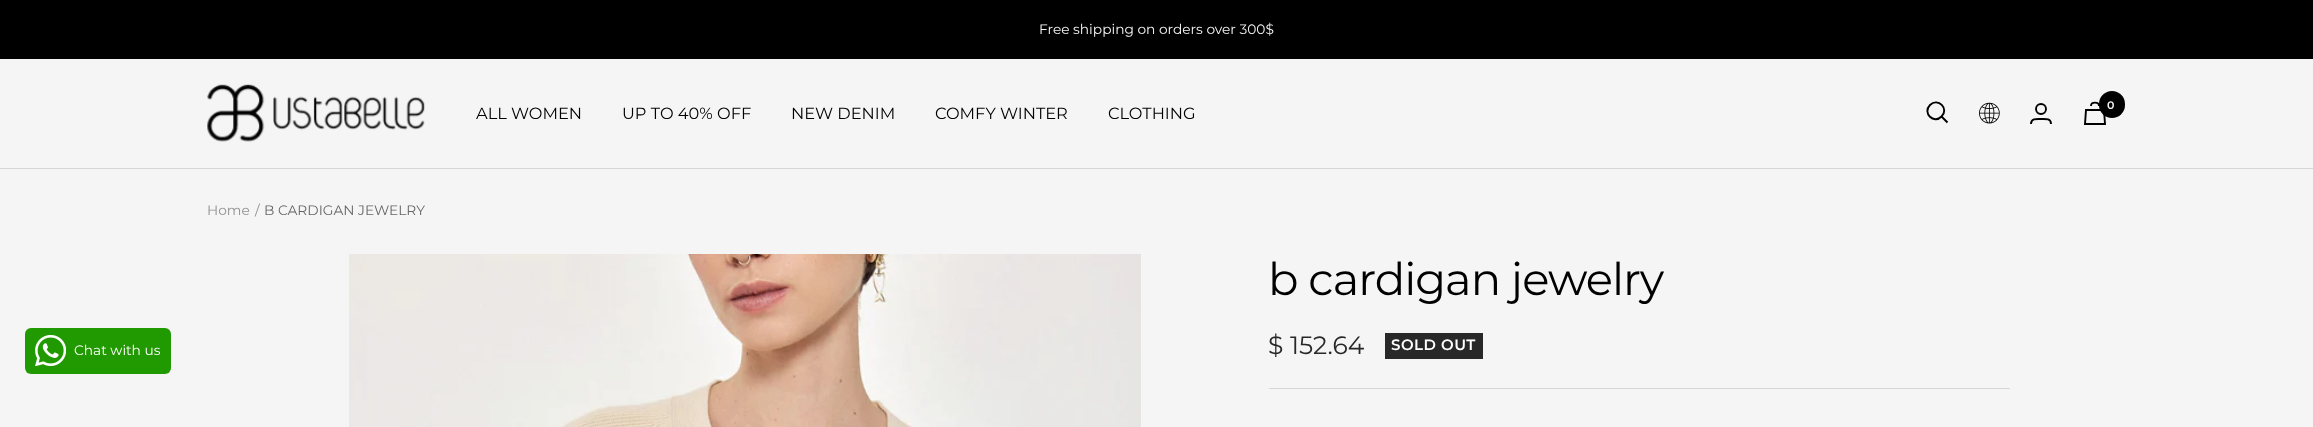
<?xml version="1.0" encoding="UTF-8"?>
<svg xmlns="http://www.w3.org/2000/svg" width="2313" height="427">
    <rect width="100%" height="100%" fill="#F5F5F5"/>
    <rect x="0" y="0" width="2313" height="59" fill="#000000"/>
    <text x="1039" y="34" font-family="Montserrat" font-size="13.75" fill="#F5F5F5">Free shipping on orders over 300$</text>
    <path d="M 0 168 V 169 H 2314 V 60 V 168 Z" fill="#D6D6D6"/>
    <image x="207" y="84" width="218" height="58" href="img_01.png"/>
    <path d="M 1941.5 116.5 C 1949.5 109 1938 97 1930 105 C 1922 113 1934 124.5 1941.5 116.5 Z M 1941.5 116.5 L 1947.5 122.5" fill="none" stroke="#000000" stroke-width="1.9"/>
    <image x="1979" y="102" width="21" height="22" href="img_02.png"/>
    <circle cx="2041" cy="109" r="5" fill="none" stroke="#000000" stroke-width="1.9"/>
    <path d="M 2031 124 C 2031 118 2037.5 119 2041 119 C 2045 119 2051 118 2051 124" fill="none" stroke="#000000" stroke-width="1.9"/>
    <path d="M 2086 110 H 2104 L 2105 124 H 2085 Z M 2099 106 C 2099 101.5 2091 101.5 2091 106" fill="none" stroke="#000000" stroke-width="1.9"/>
    <rect x="2099" y="91" width="26" height="27" rx="13" fill="#000000"/>
    <text x="2107" y="109" font-family="Montserrat" font-size="11" font-weight="600" fill="#F5F5F5">0</text>
    <text x="476" y="119" font-family="Montserrat" font-size="16.25" fill="#000000">ALL WOMEN</text>
    <text x="622" y="119" font-family="Montserrat" font-size="16.25" fill="#000000">UP TO 40% OFF</text>
    <text x="791" y="119" font-family="Montserrat" font-size="16.25" fill="#000000">NEW DENIM</text>
    <text x="935" y="119" font-family="Montserrat" font-size="16.25" fill="#000000">COMFY WINTER</text>
    <text x="1108" y="119" font-family="Montserrat" font-size="16.25" fill="#000000">CLOTHING</text>
    <rect x="25" y="328" width="146" height="46" rx="6" fill="#219900"/>
    <image x="35" y="335" width="31" height="31" href="img_03.png"/>
    <text x="74" y="355" font-family="Montserrat" font-size="13.75" fill="#FFFFFF">Chat with us</text>
    <text x="207" y="215" font-family="Montserrat" font-size="13.75" fill="#919191">Home</text>
    <text x="255" y="215" font-family="Montserrat" font-size="13.75" fill="#919191">/</text>
    <text x="264" y="215" font-family="Montserrat" font-size="13.75" fill="#666666">B CARDIGAN JEWELRY</text>
    <image x="349" y="254" width="792" height="173" href="img_04.png"/>
    <rect x="1269" y="388" width="741" height="1" fill="#D6D6D6"/>
    <text x="1268" y="295" font-family="Montserrat" font-size="45" letter-spacing="-1" fill="#000000">b cardigan jewelry</text>
    <text x="1268" y="354" font-family="Montserrat" font-size="25" fill="#282828">$ 152.64</text>
    <rect x="1385" y="333" width="98" height="26" fill="#282828"/>
    <text x="1391" y="350" font-family="Montserrat" font-size="15" font-weight="600" letter-spacing="0.5" fill="#FFFFFF">SOLD OUT</text>
</svg>
